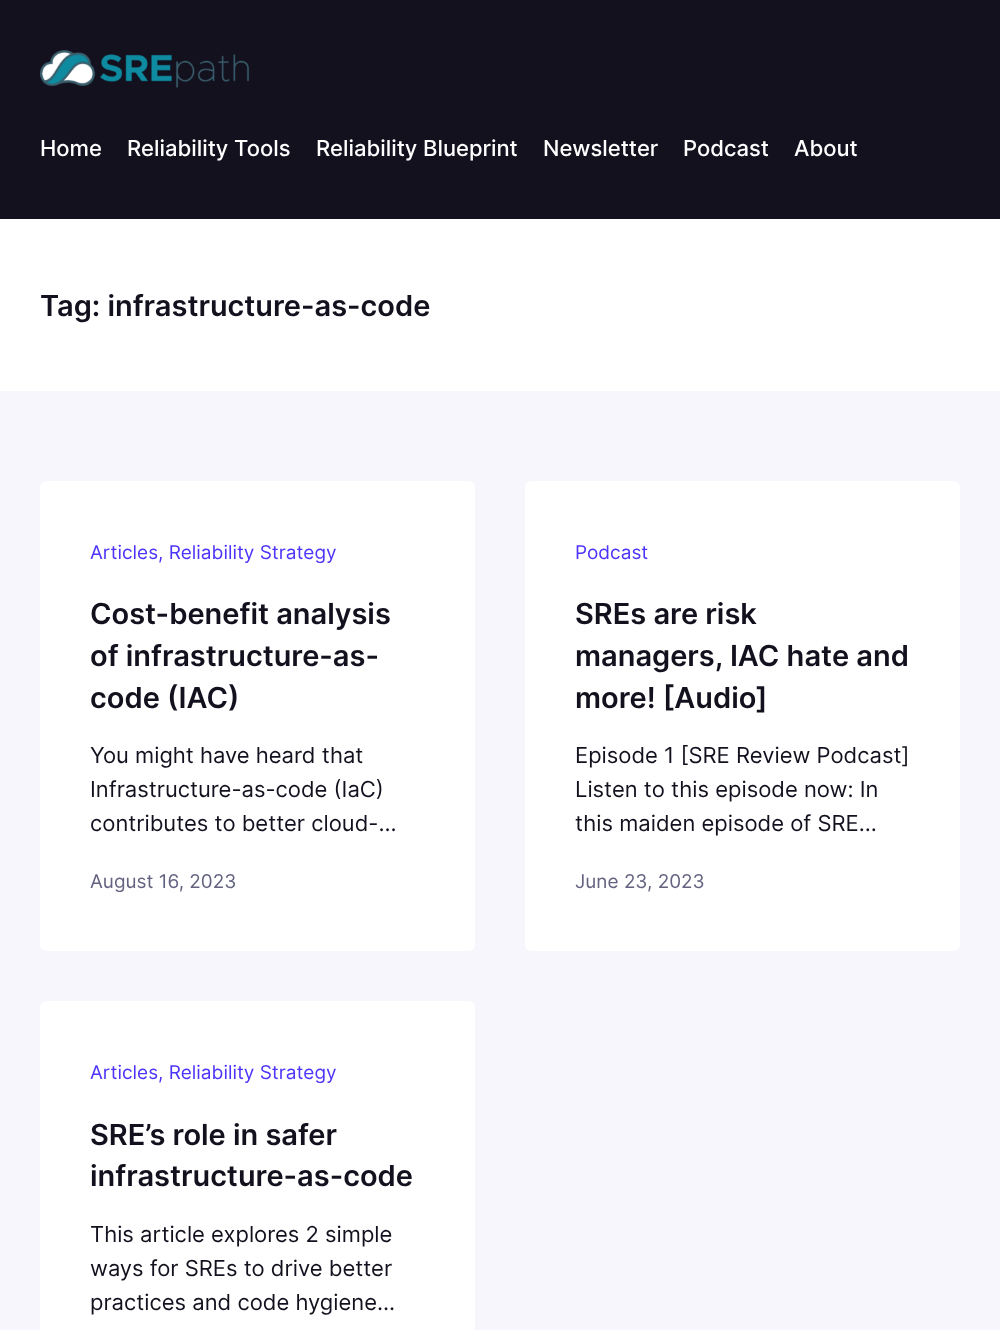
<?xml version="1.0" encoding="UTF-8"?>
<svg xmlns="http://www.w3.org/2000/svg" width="1000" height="1330">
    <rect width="100%" height="100%" fill="#FFFFFF"/>
    <rect x="0" y="0" width="1000" height="219" fill="#14111F"/>
    <image x="40" y="50" width="209" height="38" href="img_01.png"/>
    <text x="40" y="156" font-family="Inter" font-size="22" font-weight="500" fill="#FFFFFF">Home</text>
    <text x="127" y="156" font-family="Inter" font-size="22" font-weight="500" fill="#FFFFFF">Reliability Tools</text>
    <text x="316" y="156" font-family="Inter" font-size="22" font-weight="500" fill="#FFFFFF">Reliability Blueprint</text>
    <text x="543" y="156" font-family="Inter" font-size="22" font-weight="500" fill="#FFFFFF">Newsletter</text>
    <text x="683" y="156" font-family="Inter" font-size="22" font-weight="500" fill="#FFFFFF">Podcast</text>
    <text x="794" y="156" font-family="Inter" font-size="22" font-weight="500" fill="#FFFFFF">About</text>
    <text x="40" y="316" font-family="Inter" font-size="29" font-weight="600" fill="#14111F">Tag: infrastructure-as-code</text>
    <rect x="0" y="391" width="1000" height="939" fill="#F6F6FC"/>
    <rect x="40" y="481" width="435" height="470" rx="6" fill="#FFFFFF"/>
    <text x="90" y="559" font-family="Inter" font-size="19" fill="#4D34FA">Articles, Reliability Strategy</text>
    <text font-family="Inter" font-size="29" font-weight="600" fill="#14111F">
        <tspan x="90" y="624">Cost-benefit analysis</tspan>
        <tspan x="90" y="666">of infrastructure-as-</tspan>
        <tspan x="90" y="708">code (IAC)</tspan>
    </text>
    <text font-family="Inter" font-size="22" fill="#14111F">
        <tspan x="90" y="763">You might have heard that</tspan>
        <tspan x="90" y="797">Infrastructure-as-code (IaC)</tspan>
        <tspan x="90" y="831">contributes to better cloud-…</tspan>
    </text>
    <text x="90" y="888" font-family="Inter" font-size="19" fill="#636381">August 16, 2023</text>
    <rect x="525" y="481" width="435" height="470" rx="6" fill="#FFFFFF"/>
    <text x="575" y="559" font-family="Inter" font-size="19" fill="#4D34FA">Podcast</text>
    <text font-family="Inter" font-size="29" font-weight="600" fill="#14111F">
        <tspan x="575" y="624">SREs are risk</tspan>
        <tspan x="575" y="666">managers, IAC hate and</tspan>
        <tspan x="575" y="708">more! [Audio]</tspan>
    </text>
    <text font-family="Inter" font-size="22" fill="#14111F">
        <tspan x="575" y="763">Episode 1 [SRE Review Podcast]</tspan>
        <tspan x="575" y="797">Listen to this episode now: In</tspan>
        <tspan x="575" y="831">this maiden episode of SRE…</tspan>
    </text>
    <text x="575" y="888" font-family="Inter" font-size="19" fill="#636381">June 23, 2023</text>
    <rect x="40" y="1001" width="435" height="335" rx="6" fill="#FFFFFF"/>
    <text x="90" y="1079" font-family="Inter" font-size="19" fill="#4D34FA">Articles, Reliability Strategy</text>
    <text font-family="Inter" font-size="29" font-weight="600" fill="#14111F">
        <tspan x="90" y="1145">SRE’s role in safer</tspan>
        <tspan x="90" y="1186">infrastructure-as-code</tspan>
    </text>
    <text font-family="Inter" font-size="22" fill="#14111F">
        <tspan x="90" y="1242">This article explores 2 simple</tspan>
        <tspan x="90" y="1276">ways for SREs to drive better</tspan>
        <tspan x="90" y="1310">practices and code hygiene…</tspan>
    </text>
</svg>
